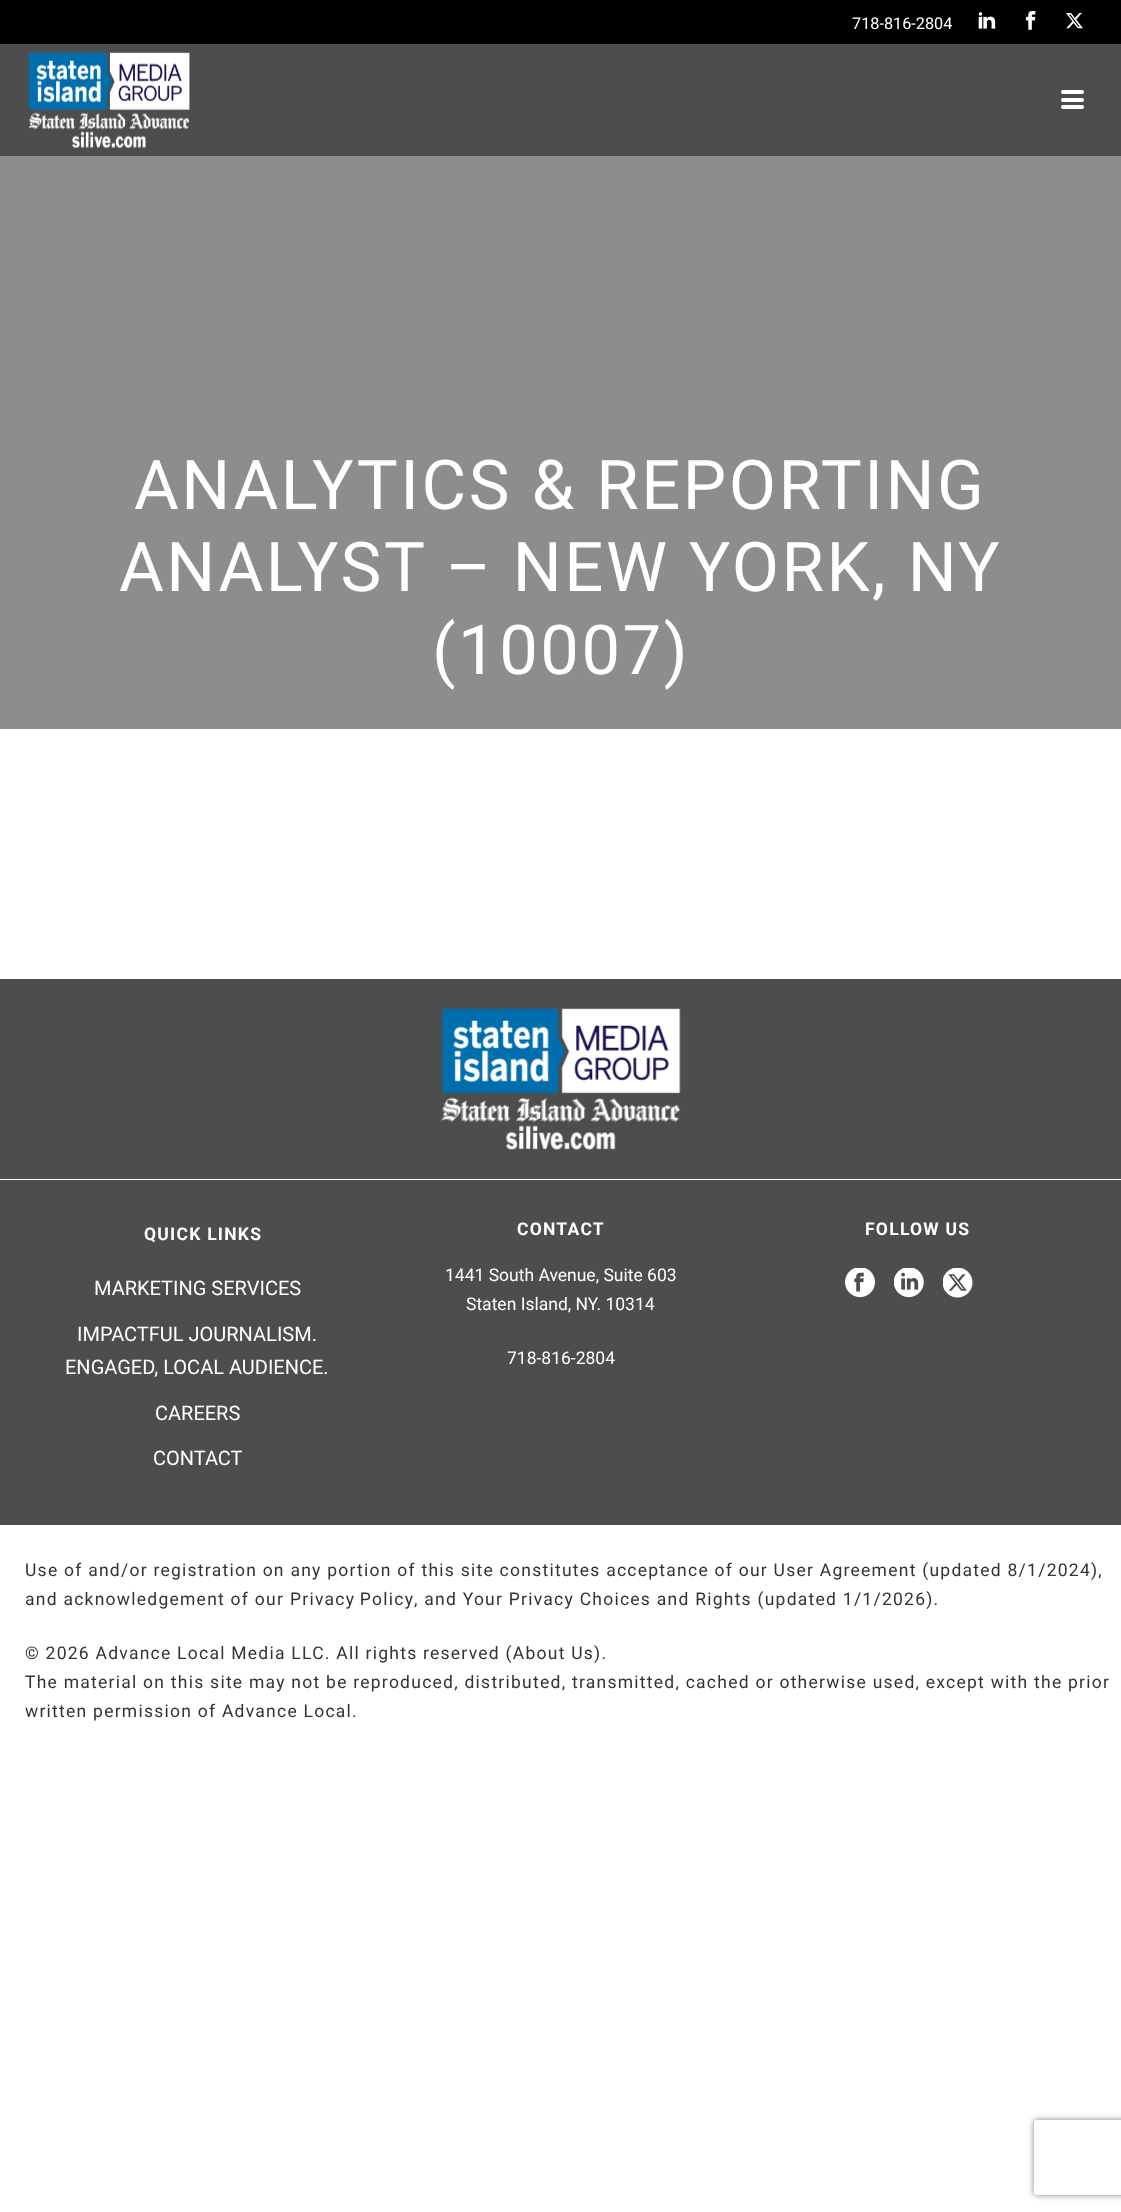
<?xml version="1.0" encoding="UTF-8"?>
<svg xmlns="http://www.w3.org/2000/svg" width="1121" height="2212">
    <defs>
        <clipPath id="clip1"><path d="M 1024 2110 H 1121 V 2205 H 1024 Z M 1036.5 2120 H 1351.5 C 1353 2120 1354 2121 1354 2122.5 V 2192.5 C 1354 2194 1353 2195 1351.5 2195 H 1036.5 C 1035 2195 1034 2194 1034 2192.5 V 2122.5 C 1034 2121 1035 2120 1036.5 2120 Z" clip-rule="evenodd"/></clipPath>
        <filter id="blur1" x="-50%" y="-200%" width="200%" height="500%"><feGaussianBlur stdDeviation="3"/></filter>
    </defs>
    <rect width="100%" height="100%" fill="#FFFFFF"/>
    <rect x="0" y="0" width="1121" height="44" fill="#000000"/>
    <text x="852" y="29" font-family="Roboto" font-size="16.25" fill="#FFFFFF">718-816-2804</text>
    <image x="978" y="12" width="18" height="17" href="img_01.png"/>
    <image x="1025" y="11" width="11" height="19" href="img_02.png"/>
    <image x="1066" y="13" width="17" height="16" href="img_03.png"/>
    <rect x="0" y="44" width="1121" height="112" fill="#4E4D4D"/>
    <image x="28" y="52" width="162" height="97" href="img_04.png"/>
    <rect x="1061" y="90" width="23" height="4" rx="2" fill="#FFFFFF"/>
    <rect x="1061" y="98" width="23" height="4" rx="2" fill="#FFFFFF"/>
    <rect x="1061" y="105" width="23" height="4" rx="2" fill="#FFFFFF"/>
    <rect x="0" y="156" width="1121" height="573" fill="#8D8D8D"/>
    <text x="134" y="509" font-family="Roboto" font-size="68.75" letter-spacing="2.5" fill="#FFFFFF">ANALYTICS &amp; REPORTING</text>
    <text x="119" y="591" font-family="Roboto" font-size="68.75" letter-spacing="2.5" fill="#FFFFFF">ANALYST – NEW YORK, NY</text>
    <text x="432" y="674" font-family="Roboto" font-size="68.75" letter-spacing="2.5" fill="#FFFFFF">(10007)</text>
    <rect x="0" y="979" width="1121" height="546" fill="#4E4D4D"/>
    <image x="441" y="1008" width="240" height="142" href="img_05.png"/>
    <rect x="0" y="1179" width="1121" height="1" fill="#FFFFFF"/>
    <text x="144" y="1240" font-family="Roboto" font-size="17.5" font-weight="700" letter-spacing="1.25" fill="#FFFFFF">QUICK LINKS</text>
    <text x="94" y="1295" font-family="Roboto" font-size="20" fill="#FFFFFF">MARKETING SERVICES</text>
    <text x="77" y="1341" font-family="Roboto" font-size="20" fill="#FFFFFF">IMPACTFUL JOURNALISM.</text>
    <text x="65" y="1374" font-family="Roboto" font-size="20" fill="#FFFFFF">ENGAGED, LOCAL AUDIENCE.</text>
    <text x="155" y="1420" font-family="Roboto" font-size="20" fill="#FFFFFF">CAREERS</text>
    <text x="153" y="1465" font-family="Roboto" font-size="20" fill="#FFFFFF">CONTACT</text>
    <text x="517" y="1235" font-family="Roboto" font-size="17.5" font-weight="700" letter-spacing="1.25" fill="#FFFFFF">CONTACT</text>
    <text x="445" y="1281" font-family="Roboto" font-size="17.5" fill="#FFFFFF">1441 South Avenue, Suite 603</text>
    <text x="466" y="1310" font-family="Roboto" font-size="17.5" fill="#FFFFFF">Staten Island, NY. 10314</text>
    <text x="507" y="1364" font-family="Roboto" font-size="17.5" fill="#FFFFFF">718-816-2804</text>
    <text x="865" y="1235" font-family="Roboto" font-size="17.5" font-weight="700" letter-spacing="1.25" fill="#FFFFFF">FOLLOW US</text>
    <image x="845" y="1268" width="30" height="30" href="img_06.png"/>
    <image x="894" y="1268" width="30" height="30" href="img_07.png"/>
    <image x="943" y="1268" width="30" height="30" href="img_08.png"/>
    <text font-family="Roboto" font-size="17.5" letter-spacing="1.25" fill="#333333">
        <tspan x="25" y="1576">Use of and/or registration on any portion of this site constitutes acceptance of our User Agreement (updated 8/1/2024),</tspan>
        <tspan x="25" y="1605">and acknowledgement of our</tspan>
    </text>
    <text x="290" y="1605" word-spacing="-1" font-family="Roboto" font-size="17.5" letter-spacing="1.25" fill="#333333">Privacy Policy</text>
    <text x="414" y="1605" font-family="Roboto" font-size="17.5" letter-spacing="1.25" fill="#333333">, and Your Privacy Choices and Rights (updated 1/1/2026).</text>
    <text font-family="Roboto" font-size="17.5" letter-spacing="1.25" fill="#333333">
        <tspan x="25" y="1659">© 2026 Advance Local Media LLC. All rights reserved (About Us).</tspan>
        <tspan x="25" y="1688">The material on this site may not be reproduced, distributed, transmitted, cached or otherwise used, except with the prior</tspan>
        <tspan x="25" y="1717">written permission of Advance Local.</tspan>
    </text>
    <g clip-path="url(#clip1)">
        <rect x="1034" y="2120" width="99" height="75" rx="2.5" fill="#808080" filter="url(#blur1)"/>
    </g>
</svg>
